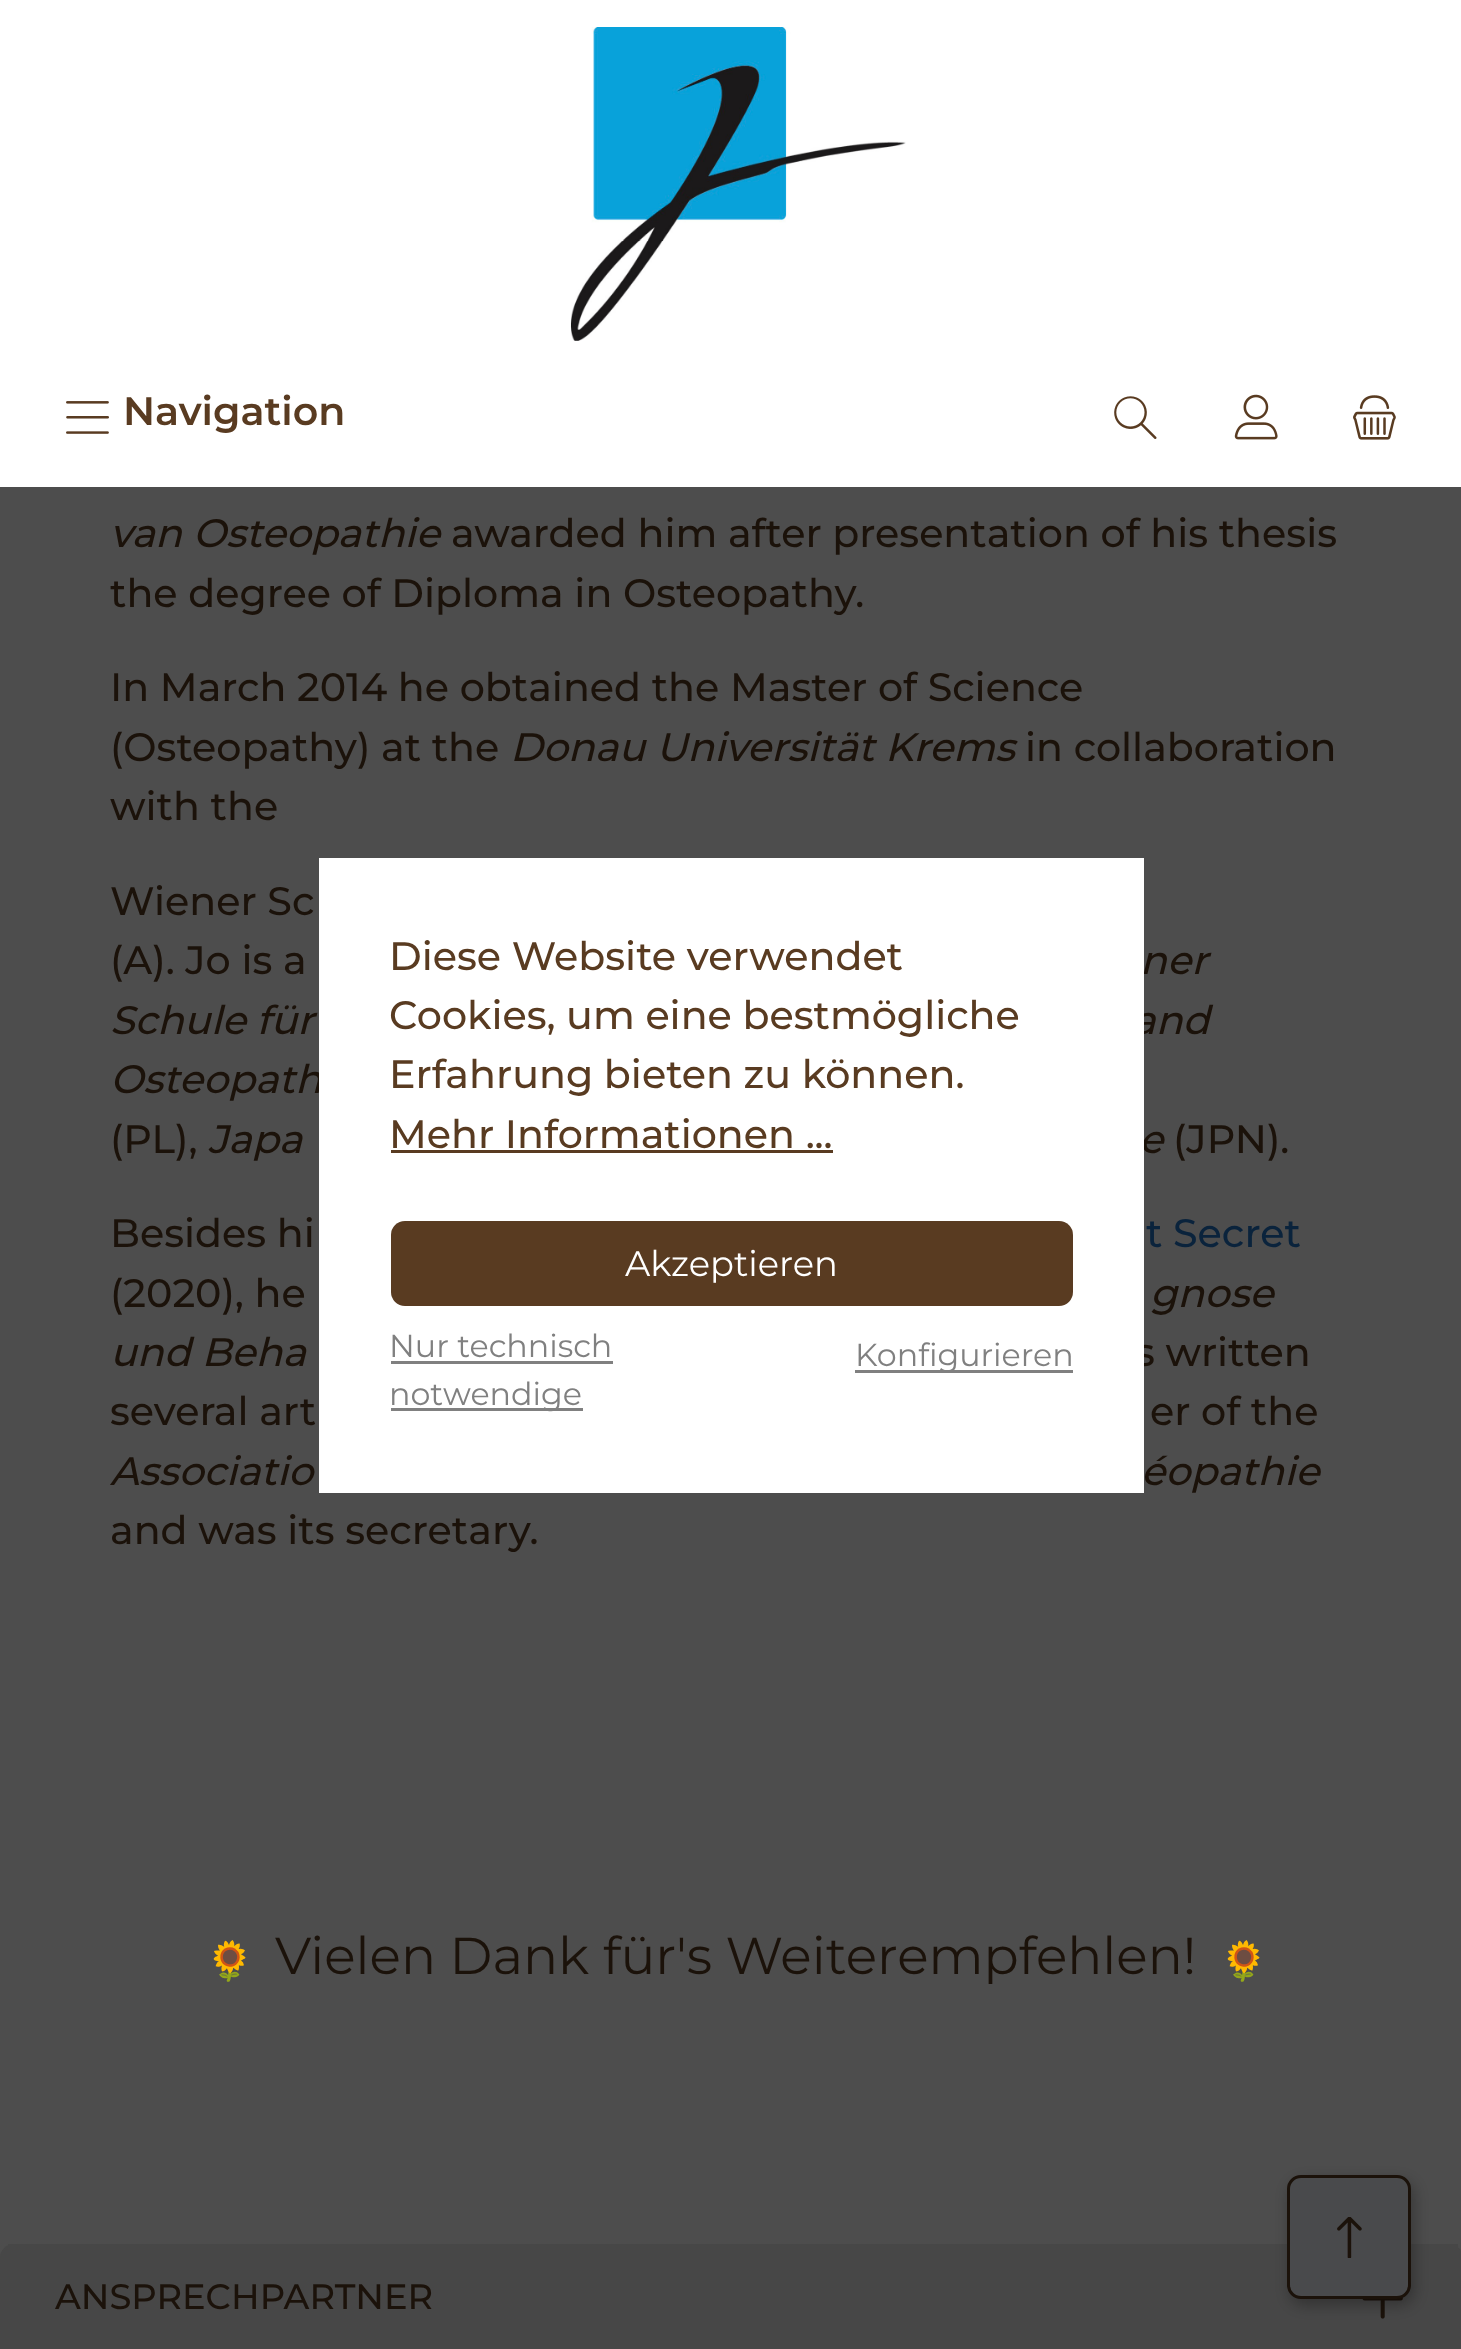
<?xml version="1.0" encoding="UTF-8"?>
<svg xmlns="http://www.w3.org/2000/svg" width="1461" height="2349">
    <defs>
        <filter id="blur1" x="-50%" y="-200%" width="200%" height="500%"><feGaussianBlur stdDeviation="8"/></filter>
    </defs>
    <rect width="100%" height="100%" fill="#4D4D4D"/>
    <rect x="0" y="0" width="1461" height="487" fill="#FFFFFF"/>
    <image x="570" y="27" width="336" height="314" href="img_01.png"/>
    <image x="66" y="401" width="43" height="33" href="img_02.png"/>
    <text x="123" y="425" font-family="Montserrat" font-size="39.6" font-weight="600" fill="#593B21">Navigation</text>
    <image x="1114" y="396" width="43" height="43" href="img_03.png"/>
    <image x="1234" y="394" width="44" height="46" href="img_04.png"/>
    <image x="1353" y="395" width="43" height="45" href="img_05.png"/>
    <text x="110" y="547" font-family="Montserrat" font-size="39.6" font-weight="100" font-style="italic" fill="#1B120A">van Osteopathie</text>
    <text x="451" y="547" font-family="Montserrat" font-size="39.6" font-weight="100" fill="#1B120A">awarded him after presentation of his thesis</text>
    <text x="110" y="607" font-family="Montserrat" font-size="39.6" font-weight="100" fill="#1B120A">the degree of Diploma in Osteopathy.</text>
    <text font-family="Montserrat" font-size="39.6" font-weight="100" fill="#1B120A">
        <tspan x="110" y="701">In March 2014 he obtained the Master of Science</tspan>
        <tspan x="110" y="761">(Osteopathy) at the</tspan>
    </text>
    <text x="510" y="761" font-family="Montserrat" font-size="39.6" font-weight="100" font-style="italic" fill="#1B120A">Donau Universität Krems</text>
    <text x="1025" y="761" font-family="Montserrat" font-size="39.6" font-weight="100" fill="#1B120A">in collaboration</text>
    <text x="110" y="820" font-family="Montserrat" font-size="39.6" font-weight="100" fill="#1B120A">with the</text>
    <text font-family="Montserrat" font-size="39.6" font-weight="100" fill="#1B120A">
        <tspan x="110" y="915">Wiener Sc</tspan>
        <tspan x="110" y="974">(A). Jo is a</tspan>
    </text>
    <text x="1140" y="974" font-family="Montserrat" font-size="39.6" font-weight="100" font-style="italic" fill="#1B120A">ner</text>
    <text x="110" y="1034" font-family="Montserrat" font-size="39.6" font-weight="100" font-style="italic" fill="#1B120A">Schule für</text>
    <text x="1132" y="1034" font-family="Montserrat" font-size="39.6" font-weight="100" font-style="italic" fill="#1B120A">and</text>
    <text x="110" y="1093" font-family="Montserrat" font-size="39.6" font-weight="100" font-style="italic" fill="#1B120A">Osteopath</text>
    <text x="110" y="1153" font-family="Montserrat" font-size="39.6" font-weight="100" fill="#1B120A">(PL),</text>
    <text x="208" y="1153" font-family="Montserrat" font-size="39.6" font-weight="100" font-style="italic" fill="#1B120A">Japa</text>
    <text x="1139" y="1153" font-family="Montserrat" font-size="39.6" font-weight="100" font-style="italic" fill="#1B120A">e</text>
    <text x="1173" y="1153" font-family="Montserrat" font-size="39.6" font-weight="100" fill="#1B120A">(JPN).</text>
    <text x="110" y="1247" font-family="Montserrat" font-size="39.6" font-weight="100" fill="#1B120A">Besides hi</text>
    <text x="1146" y="1247" font-family="Montserrat" font-size="39.6" font-weight="100" fill="#0A233C">t Secret</text>
    <text x="110" y="1307" font-family="Montserrat" font-size="39.6" font-weight="100" fill="#1B120A">(2020), he</text>
    <text x="1150" y="1307" font-family="Montserrat" font-size="39.6" font-weight="100" font-style="italic" fill="#1B120A">gnose</text>
    <text x="110" y="1366" font-family="Montserrat" font-size="39.6" font-weight="100" font-style="italic" fill="#1B120A">und Beha</text>
    <text x="1135" y="1366" font-family="Montserrat" font-size="39.6" font-weight="100" fill="#1B120A">s written</text>
    <text x="110" y="1425" font-family="Montserrat" font-size="39.6" font-weight="100" fill="#1B120A">several art</text>
    <text x="1150" y="1425" font-family="Montserrat" font-size="39.6" font-weight="100" fill="#1B120A">er of the</text>
    <text x="110" y="1485" font-family="Montserrat" font-size="39.6" font-weight="100" font-style="italic" fill="#1B120A">Associatio</text>
    <text x="1141" y="1485" font-family="Montserrat" font-size="39.6" font-weight="100" font-style="italic" fill="#1B120A">éopathie</text>
    <text x="110" y="1544" font-family="Montserrat" font-size="39.6" font-weight="100" fill="#1B120A">and was its secretary.</text>
    <text x="206" y="1974" font-family="Noto Color Emoji" font-size="38" fill="#151515">🌻</text>
    <text x="275" y="1974" font-family="'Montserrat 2'" font-size="51.9" font-weight="100" fill="#1B120A">Vielen Dank für's Weiterempfehlen!</text>
    <text x="1220" y="1974" font-family="Noto Color Emoji" font-size="38" fill="#151515">🌻</text>
    <rect x="319" y="858" width="825" height="635" fill="#FFFFFF"/>
    <text font-family="Montserrat" font-size="39.6" font-weight="100" fill="#593B21">
        <tspan x="389" y="970">Diese Website verwendet</tspan>
        <tspan x="389" y="1029">Cookies, um eine bestmögliche</tspan>
        <tspan x="389" y="1088">Erfahrung bieten zu können.</tspan>
        <tspan x="389" y="1148">Mehr Informationen ...</tspan>
    </text>
    <rect x="391" y="1150" width="442" height="3" fill="#593B21"/>
    <rect x="391" y="1221" width="682" height="85" rx="14" fill="#593B21"/>
    <text x="625" y="1276" font-family="'Montserrat 2'" font-size="35.25" font-weight="100" fill="#FFFFFF">Akzeptieren</text>
    <text x="389" y="1357" font-family="'Montserrat 2'" font-size="31.75" font-weight="100" fill="#808080">Nur technisch</text>
    <rect x="391" y="1361" width="222" height="3" fill="#808080"/>
    <rect x="391" y="1408" width="192" height="3" fill="#808080"/>
    <text x="389" y="1405" font-family="'Montserrat 2'" font-size="31.75" font-weight="100" fill="#808080">notwendige</text>
    <rect x="855" y="1370" width="218" height="3" fill="#808080"/>
    <text x="855" y="1366" font-family="'Montserrat 2'" font-size="31.75" font-weight="100" fill="#808080">Konfigurieren</text>
    <rect x="0" y="2244" width="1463" height="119" rx="14" fill="#474747"/>
    <rect x="8" y="2244" width="1450" height="3" fill="#474747"/>
    <text x="55" y="2309" font-family="Montserrat" font-size="35.25" font-weight="100" fill="#1B120A">ANSPRECHPARTNER</text>
    <image x="1362" y="2297" width="41" height="22" href="img_06.png"/>
    <rect x="1290" y="2181" width="124" height="124" rx="14" fill="#000000" fill-opacity="0.3" filter="url(#blur1)"/>
    <rect x="1288.5" y="2176.5" width="121" height="121" rx="12.5" fill="#494A4C" stroke="#1B120A" stroke-width="3"/>
    <image x="1337" y="2217" width="25" height="41" href="img_07.png"/>
</svg>
